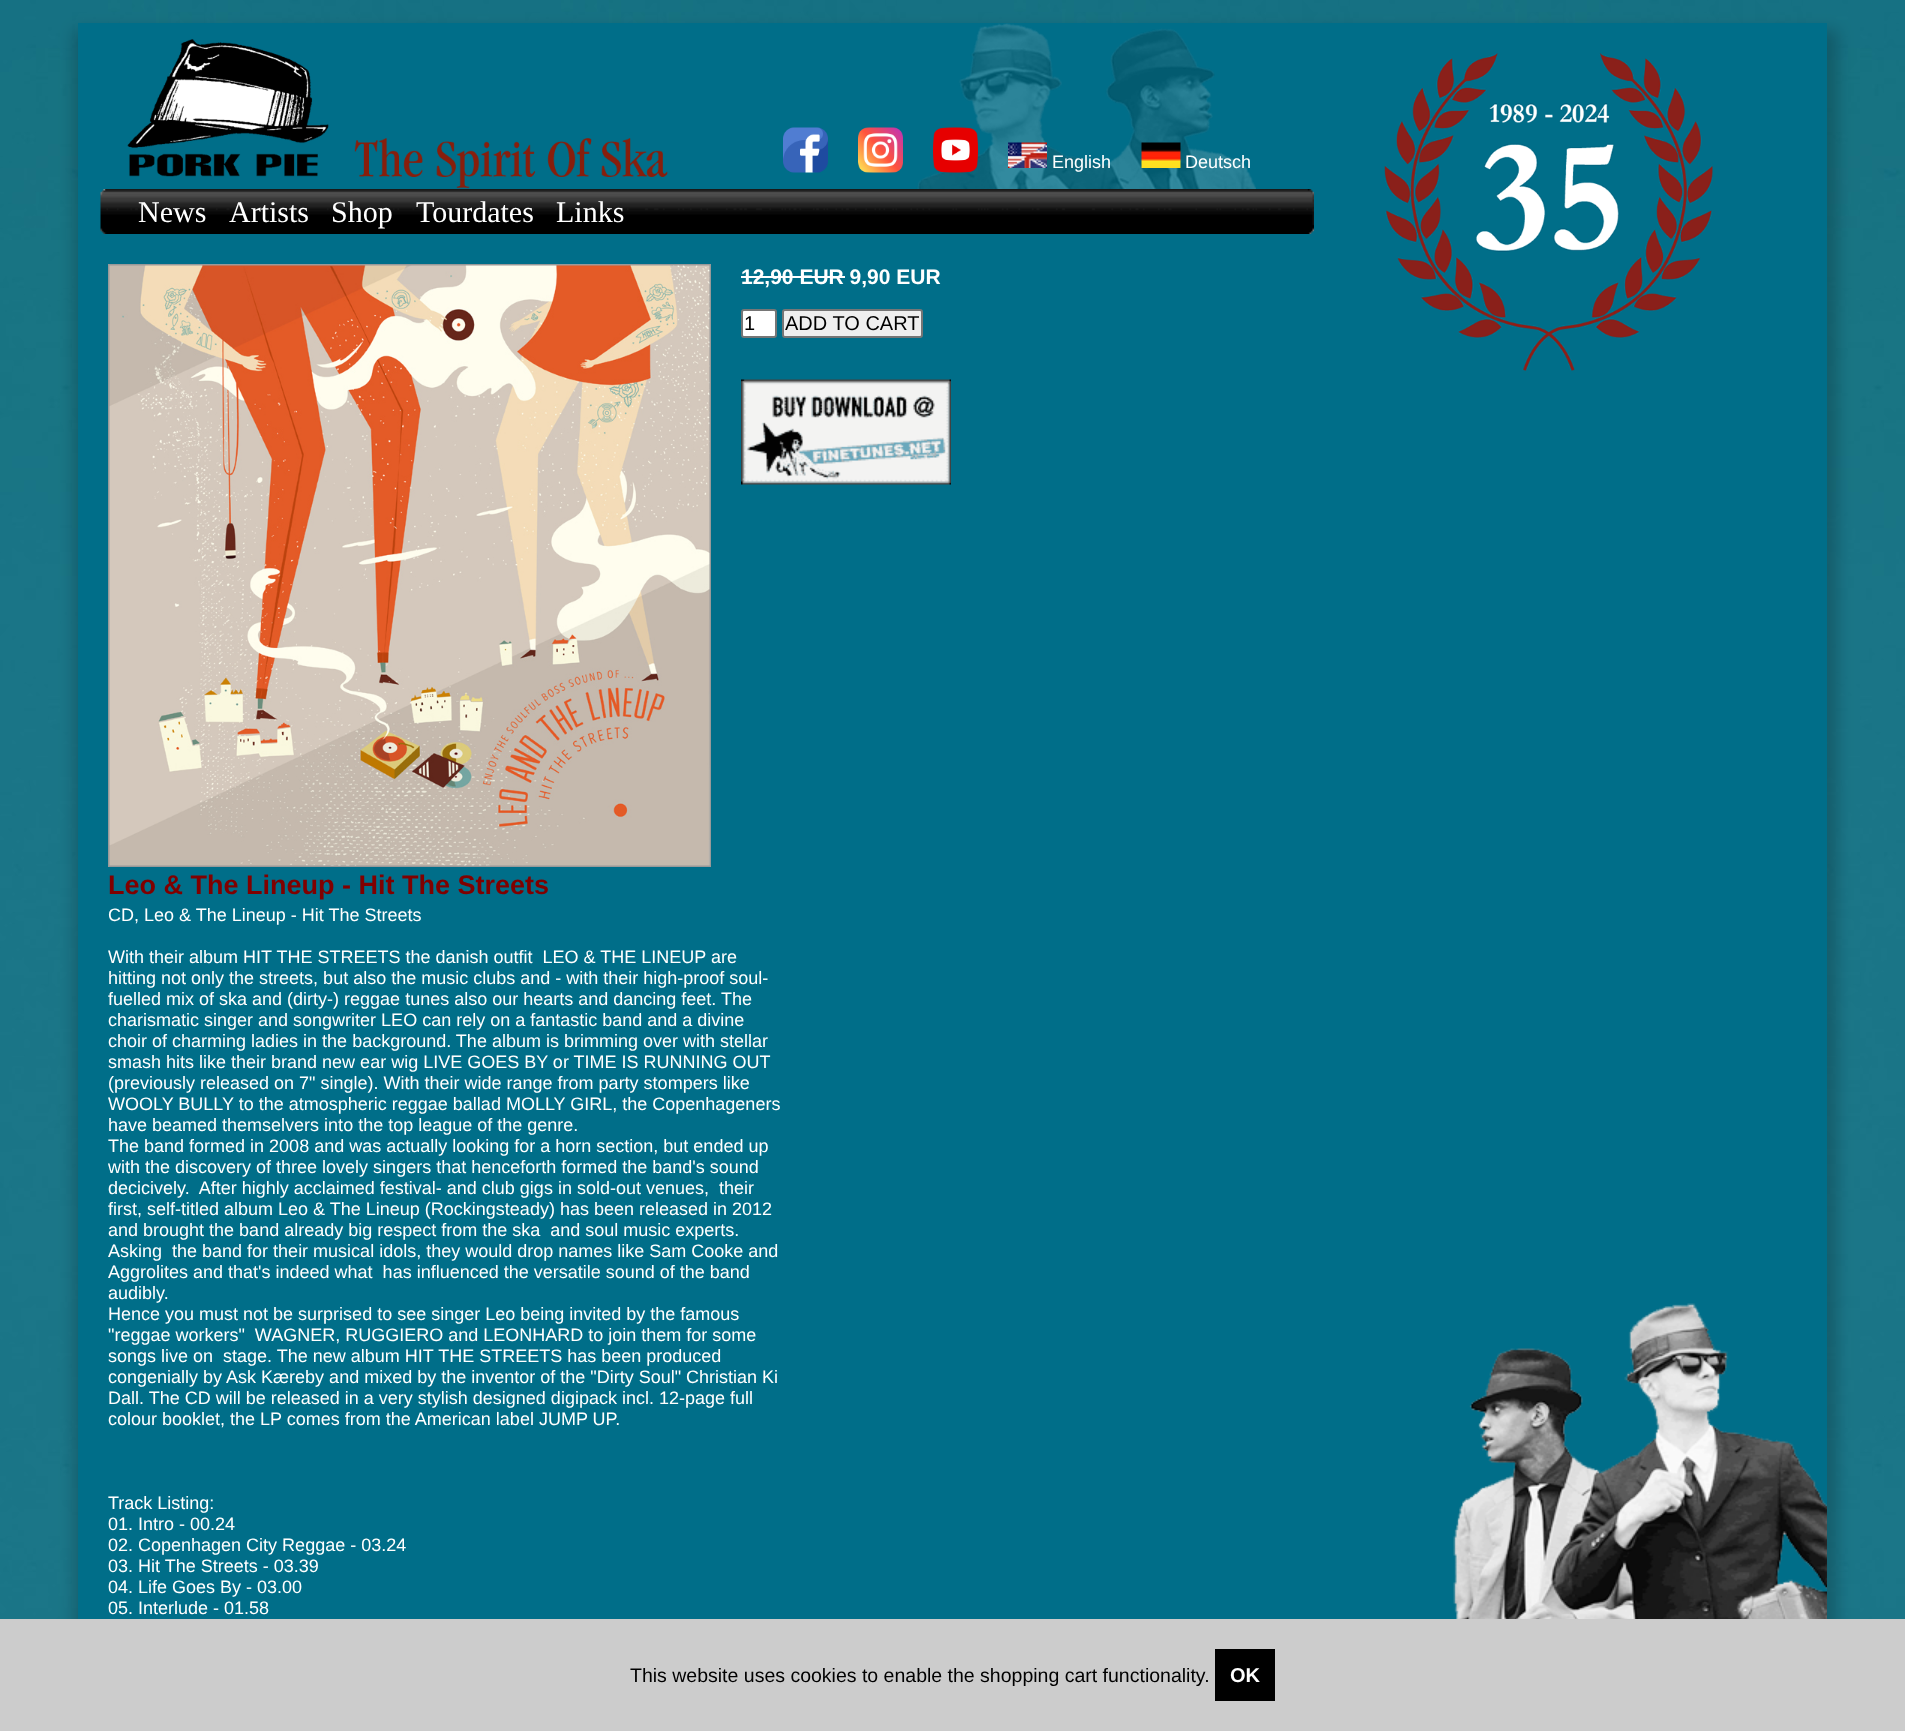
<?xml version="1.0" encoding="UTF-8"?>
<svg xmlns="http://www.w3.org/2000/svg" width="1905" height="1731">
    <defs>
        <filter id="blur1" x="-50%" y="-200%" width="200%" height="500%"><feGaussianBlur stdDeviation="7.5"/></filter>
    </defs>
    <rect width="100%" height="100%" fill="#FFFFFF"/>
    <image x="0" y="0" width="1905" height="1619" href="img_01.png"/>
    <rect x="74" y="30" width="1764" height="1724" fill="#000000" fill-opacity="0.2" filter="url(#blur1)"/>
    <rect x="78" y="23" width="1749" height="1596" fill="#006E89"/>
    <image x="127" y="23" width="1129" height="166" href="img_02.png"/>
    <image x="1384" y="53" width="329" height="318" href="img_03.png"/>
    <image x="783" y="127" width="45" height="46" href="img_04.png"/>
    <image x="858" y="127" width="45" height="46" href="img_05.png"/>
    <image x="933" y="127" width="45" height="46" href="img_06.png"/>
    <image x="1008" y="142" width="39" height="26" href="img_07.png"/>
    <text x="1052" y="168" font-family="Liberation Sans" font-size="18" fill="#FFFFFF">English</text>
    <image x="1141" y="142" width="40" height="26" href="img_08.png"/>
    <text x="1185" y="168" font-family="Liberation Sans" font-size="18" fill="#FFFFFF">Deutsch</text>
    <image x="100" y="189" width="1214" height="45" href="img_09.png"/>
    <text x="138" y="222" font-family="Liberation Serif" font-size="30" fill="#FFFFFF">News</text>
    <text x="229" y="222" font-family="Liberation Serif" font-size="30" fill="#FFFFFF">Artists</text>
    <text x="331" y="222" font-family="Liberation Serif" font-size="30" fill="#FFFFFF">Shop</text>
    <text x="416" y="222" font-family="Liberation Serif" font-size="30" fill="#FFFFFF">Tourdates</text>
    <text x="556" y="222" font-family="Liberation Serif" font-size="30" fill="#FFFFFF">Links</text>
    <rect x="109" y="265" width="601" height="601" fill="none" stroke="#999999" stroke-width="2"/>
    <image x="109" y="265" width="601" height="601" href="img_10.png"/>
    <text x="741" y="284" font-family="Liberation Sans" font-size="21" font-weight="700" fill="#FFFFFF">12,90 EUR 9,90 EUR</text>
    <rect x="741" y="276" width="104" height="2" fill="#FFFFFF"/>
    <rect x="742" y="310" width="34" height="27" rx="2" fill="#FFFFFF" stroke="#767676" stroke-width="2"/>
    <text x="744" y="330" font-family="Liberation Sans" font-size="20" fill="#000000">1</text>
    <rect x="783" y="310" width="139" height="27" rx="2" fill="#EFEFEF" stroke="#767676" stroke-width="2"/>
    <text x="785" y="330" font-family="Liberation Sans" font-size="20" fill="#000000">ADD TO CART</text>
    <image x="741" y="379" width="210" height="106" href="img_11.png"/>
    <text x="108" y="894" font-family="Liberation Sans" font-size="27" font-weight="700" fill="#800000">Leo &amp; The Lineup - Hit The Streets</text>
    <text x="108" y="921" font-family="Liberation Sans" font-size="18" fill="#FFFFFF">CD, Leo &amp; The Lineup - Hit The Streets</text>
    <text font-family="Liberation Sans" font-size="18" fill="#FFFFFF" xml:space="preserve"><tspan x="108" y="963">With their album HIT THE STREETS the danish outfit  LEO &amp; THE LINEUP are</tspan><tspan x="108" y="984">hitting not only the streets, but also the music clubs and - with their high-proof soul-</tspan><tspan x="108" y="1005">fuelled mix of ska and (dirty-) reggae tunes also our hearts and dancing feet. The</tspan><tspan x="108" y="1026">charismatic singer and songwriter LEO can rely on a fantastic band and a divine</tspan><tspan x="108" y="1047">choir of charming ladies in the background. The album is brimming over with stellar</tspan><tspan x="108" y="1068">smash hits like their brand new ear wig LIVE GOES BY or TIME IS RUNNING OUT</tspan><tspan x="108" y="1089">(previously released on 7" single). With their wide range from party stompers like</tspan><tspan x="108" y="1110">WOOLY BULLY to the atmospheric reggae ballad MOLLY GIRL, the Copenhageners</tspan><tspan x="108" y="1131">have beamed themselvers into the top league of the genre.</tspan><tspan x="108" y="1152">The band formed in 2008 and was actually looking for a horn section, but ended up</tspan><tspan x="108" y="1173">with the discovery of three lovely singers that henceforth formed the band's sound</tspan><tspan x="108" y="1194">decicively.  After highly acclaimed festival- and club gigs in sold-out venues,  their</tspan><tspan x="108" y="1215">first, self-titled album Leo &amp; The Lineup (Rockingsteady) has been released in 2012</tspan><tspan x="108" y="1236">and brought the band already big respect from the ska  and soul music experts.</tspan><tspan x="108" y="1257">Asking  the band for their musical idols, they would drop names like Sam Cooke and</tspan><tspan x="108" y="1278">Aggrolites and that's indeed what  has influenced the versatile sound of the band</tspan><tspan x="108" y="1299">audibly.</tspan><tspan x="108" y="1320">Hence you must not be surprised to see singer Leo being invited by the famous</tspan><tspan x="108" y="1341">"reggae workers"  WAGNER, RUGGIERO and LEONHARD to join them for some</tspan><tspan x="108" y="1362">songs live on  stage. The new album HIT THE STREETS has been produced</tspan><tspan x="108" y="1383">congenially by Ask Kæreby and mixed by the inventor of the "Dirty Soul" Christian Ki</tspan><tspan x="108" y="1404">Dall. The CD will be released in a very stylish designed digipack incl. 12-page full</tspan><tspan x="108" y="1425">colour booklet, the LP comes from the American label JUMP UP.</tspan></text>
    <text font-family="Liberation Sans" font-size="18" fill="#FFFFFF">
        <tspan x="108" y="1509">Track Listing:</tspan>
        <tspan x="108" y="1530">01. Intro - 00.24</tspan>
        <tspan x="108" y="1551">02. Copenhagen City Reggae - 03.24</tspan>
        <tspan x="108" y="1572">03. Hit The Streets - 03.39</tspan>
        <tspan x="108" y="1593">04. Life Goes By - 03.00</tspan>
        <tspan x="108" y="1614">05. Interlude - 01.58</tspan>
    </text>
    <image x="1453" y="1303" width="374" height="316" href="img_12.png"/>
    <rect x="0" y="1619" width="1905" height="112" fill="#CCCCCC"/>
    <text x="630" y="1682" font-family="Liberation Sans" font-size="19.5" fill="#000000">This website uses cookies to enable the shopping cart functionality.</text>
    <rect x="1215" y="1649" width="60" height="52" fill="#000000"/>
    <text x="1230" y="1682" font-family="Liberation Sans" font-size="20" font-weight="700" fill="#FFFFFF">OK</text>
</svg>
